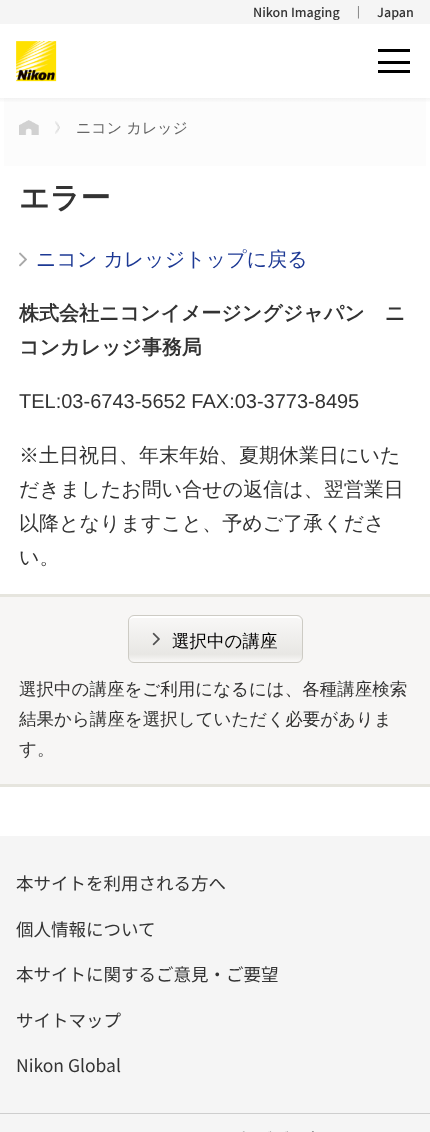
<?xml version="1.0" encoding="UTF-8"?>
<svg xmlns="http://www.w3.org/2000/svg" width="430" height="1132">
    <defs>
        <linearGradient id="g1" gradientUnits="userSpaceOnUse" x1="215" y1="97" x2="215" y2="103"><stop offset="0" stop-color="#000000" stop-opacity="0.05"/><stop offset="1" stop-color="#FFFFFF" stop-opacity="0.05"/></linearGradient>
        <clipPath id="clip1"><rect x="128" y="615" width="175" height="48" rx="6"/></clipPath>
        <linearGradient id="g2" gradientUnits="userSpaceOnUse" x1="215" y1="616" x2="215" y2="661"><stop offset="0.1" stop-color="#F7F6F5"/><stop offset="0.85" stop-color="#E8E7E4"/><stop offset="1" stop-color="#F7F6F5"/></linearGradient>
    </defs>
    <rect width="100%" height="100%" fill="#FFFFFF"/>
    <rect x="0" y="0" width="430" height="24" fill="#F5F5F5"/>
    <text x="253" y="17" font-family="Noto Sans JP" font-size="12.5" font-weight="500" fill="#333333">Nikon Imaging　｜　Japan</text>
    <image x="16" y="41" width="41" height="41" href="img_01.png"/>
    <rect x="378" y="49" width="32" height="3" fill="#000000"/>
    <rect x="378" y="61" width="32" height="3" fill="#000000"/>
    <rect x="378" y="70" width="32" height="3" fill="#000000"/>
    <rect x="4" y="98" width="422" height="68" fill="#FCFCFC"/>
    <rect x="0" y="98" width="430" height="4" fill="url(#g1)"/>
    <image x="19" y="120" width="20" height="15" href="img_02.png"/>
    <image x="55" y="121" width="5" height="13" href="img_03.png"/>
    <text x="76" y="133" font-family="WenQuanYi Zen Hei" font-size="15" font-weight="500" fill="#666666">ニコン カレッジ</text>
    <text x="19" y="208" font-family="WenQuanYi Zen Hei" font-size="30" font-weight="700" fill="#333333">エラー</text>
    <image x="19" y="252" width="8" height="15" href="img_04.png"/>
    <text x="36" y="266" font-family="WenQuanYi Zen Hei" font-size="20" font-weight="500" fill="#1D3994">ニコン カレッジトップに戻る</text>
    <text font-family="WenQuanYi Zen Hei" font-size="20" font-weight="700" fill="#333333">
        <tspan x="19" y="320">株式会社ニコンイメージングジャパン　ニ</tspan>
        <tspan x="19" y="354">コンカレッジ事務局</tspan>
    </text>
    <text x="19" y="408" font-family="Liberation Sans" font-size="20" fill="#333333">TEL:03-6743-5652 FAX:03-3773-8495</text>
    <text font-family="WenQuanYi Zen Hei" font-size="20" font-weight="500" fill="#333333">
        <tspan x="19" y="462">※土日祝日、年末年始、夏期休業日にいた</tspan>
        <tspan x="19" y="496">だきましたお問い合せの返信は、翌営業日</tspan>
        <tspan x="19" y="530">以降となりますこと、予めご了承くださ</tspan>
        <tspan x="19" y="564">い。</tspan>
    </text>
    <rect x="0" y="597" width="430" height="187" fill="#F7F6F5"/>
    <rect x="0" y="594" width="430" height="3" fill="#E6E5DE"/>
    <rect x="0" y="784" width="430" height="3" fill="#E6E5DE"/>
    <g clip-path="url(#clip1)">
        <rect x="128" y="616" width="175" height="45" fill="url(#g2)"/>
    </g>
    <path d="M 134 618 H 297 L 300 619 L 301 622 C 301 619 299 616 296 616 H 133 C 130 617 129 619 129 622 C 129 620 131 618 134 618 Z" fill="#FFFFFF"/>
    <rect x="128.5" y="615.5" width="174" height="47" rx="5.5" fill="none" stroke="#CDCBC4"/>
    <image x="152" y="632" width="8" height="14" href="img_05.png"/>
    <text x="172" y="647" font-family="WenQuanYi Zen Hei" font-size="17.5" font-weight="500" fill="#000000">選択中の講座</text>
    <text font-family="WenQuanYi Zen Hei" font-size="17.5" font-weight="500" fill="#333333">
        <tspan x="19" y="695">選択中の講座をご利用になるには、各種講座検索</tspan>
        <tspan x="19" y="725">結果から講座を選択していただく必要がありま</tspan>
        <tspan x="19" y="755">す。</tspan>
    </text>
    <rect x="0" y="836" width="430" height="296" fill="#F5F5F5"/>
    <text x="16" y="890" font-family="Noto Sans JP" font-size="17.5" fill="#333333">本サイトを利用される方へ</text>
    <text x="16" y="936" font-family="Noto Sans JP" font-size="17.5" fill="#333333">個人情報について</text>
    <text x="16" y="981" font-family="Noto Sans JP" font-size="17.5" fill="#333333">本サイトに関するご意見・ご要望</text>
    <text x="16" y="1027" font-family="Noto Sans JP" font-size="17.5" fill="#333333">サイトマップ</text>
    <text x="16" y="1072" font-family="Noto Sans JP" font-size="17.5" fill="#333333">Nikon Global</text>
    <rect x="0" y="1113" width="430" height="1" fill="#CECECE"/>
    <image x="242" y="1131" width="72" height="1" href="img_06.png"/>
</svg>
